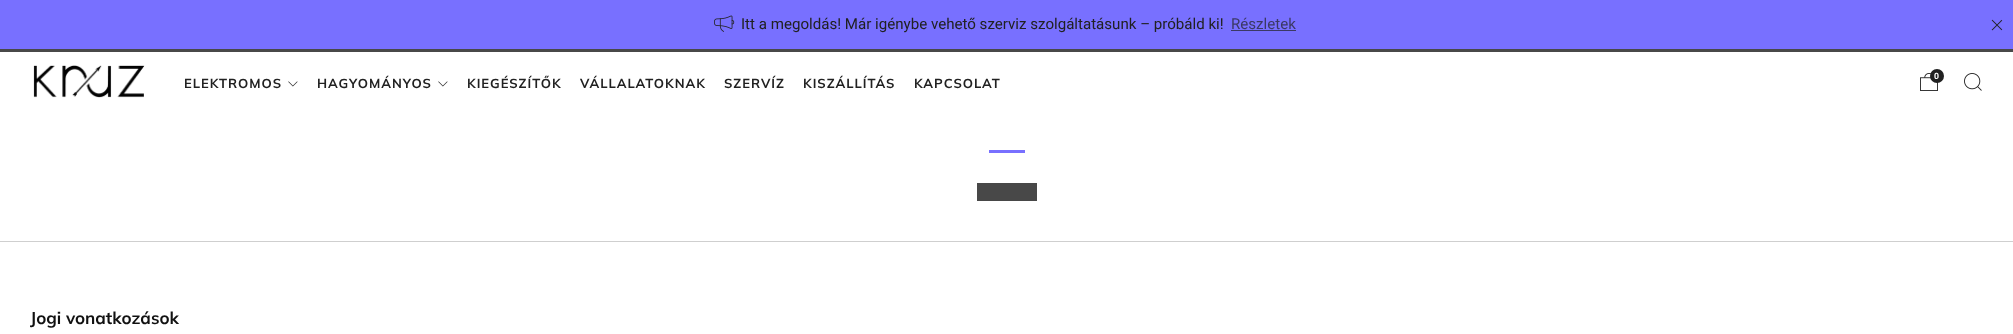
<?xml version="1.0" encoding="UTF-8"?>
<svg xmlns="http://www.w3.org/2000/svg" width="2013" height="334">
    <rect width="100%" height="100%" fill="#FFFFFF"/>
    <rect x="0" y="0" width="2013" height="49" fill="#7870FF"/>
    <image x="714" y="15" width="21" height="17" href="img_01.png"/>
    <text x="741" y="29" font-family="Roboto" font-size="15.1" fill="#212121">Itt a megoldás! Már igénybe vehető szerviz szolgáltatásunk – próbáld ki!</text>
    <text x="1231" y="29" font-family="Roboto" font-size="15.1" fill="#3B3964">Részletek</text>
    <rect x="1231" y="30" width="65" height="1" fill="#3B3964"/>
    <image x="1991" y="19" width="12" height="12" href="img_02.png"/>
    <rect x="0" y="49" width="2013" height="3" fill="#484848"/>
    <image x="33" y="65" width="112" height="33" href="img_03.png"/>
    <text x="184" y="88" font-family="Muli" font-size="13" font-weight="700" letter-spacing="1" fill="#212121">ELEKTROMOS</text>
    <image x="288" y="81" width="10" height="6" href="img_04.png"/>
    <text x="317" y="88" font-family="Muli" font-size="13" font-weight="700" letter-spacing="1" fill="#212121">HAGYOMÁNYOS</text>
    <image x="438" y="81" width="10" height="6" href="img_04.png"/>
    <text x="467" y="88" font-family="Muli" font-size="13" font-weight="700" letter-spacing="1" fill="#212121">KIEGÉSZÍTŐK</text>
    <text x="580" y="88" font-family="Muli" font-size="13" font-weight="700" letter-spacing="1" fill="#212121">VÁLLALATOKNAK</text>
    <text x="724" y="88" font-family="Muli" font-size="13" font-weight="700" letter-spacing="1" fill="#212121">SZERVÍZ</text>
    <text x="803" y="88" font-family="Muli" font-size="13" font-weight="700" letter-spacing="1" fill="#212121">KISZÁLLÍTÁS</text>
    <text x="914" y="88" font-family="Muli" font-size="13" font-weight="700" letter-spacing="1" fill="#212121">KAPCSOLAT</text>
    <image x="1920" y="73" width="18" height="18" href="img_05.png"/>
    <circle cx="1937" cy="76" r="7" fill="#212121"/>
    <text x="1934" y="79" font-family="Liberation Sans" font-size="9" font-weight="700" fill="#FFFFFF">0</text>
    <image x="1964" y="73" width="18" height="18" href="img_06.png"/>
    <rect x="989" y="150" width="36" height="3" fill="#7870FF"/>
    <rect x="977" y="183" width="60" height="18" fill="#484848"/>
    <rect x="0" y="241" width="2013" height="1" fill="#CFCFCF"/>
    <text x="30" y="324" font-family="Muli" font-size="17" font-weight="700" fill="#111111">Jogi vonatkozások</text>
</svg>
